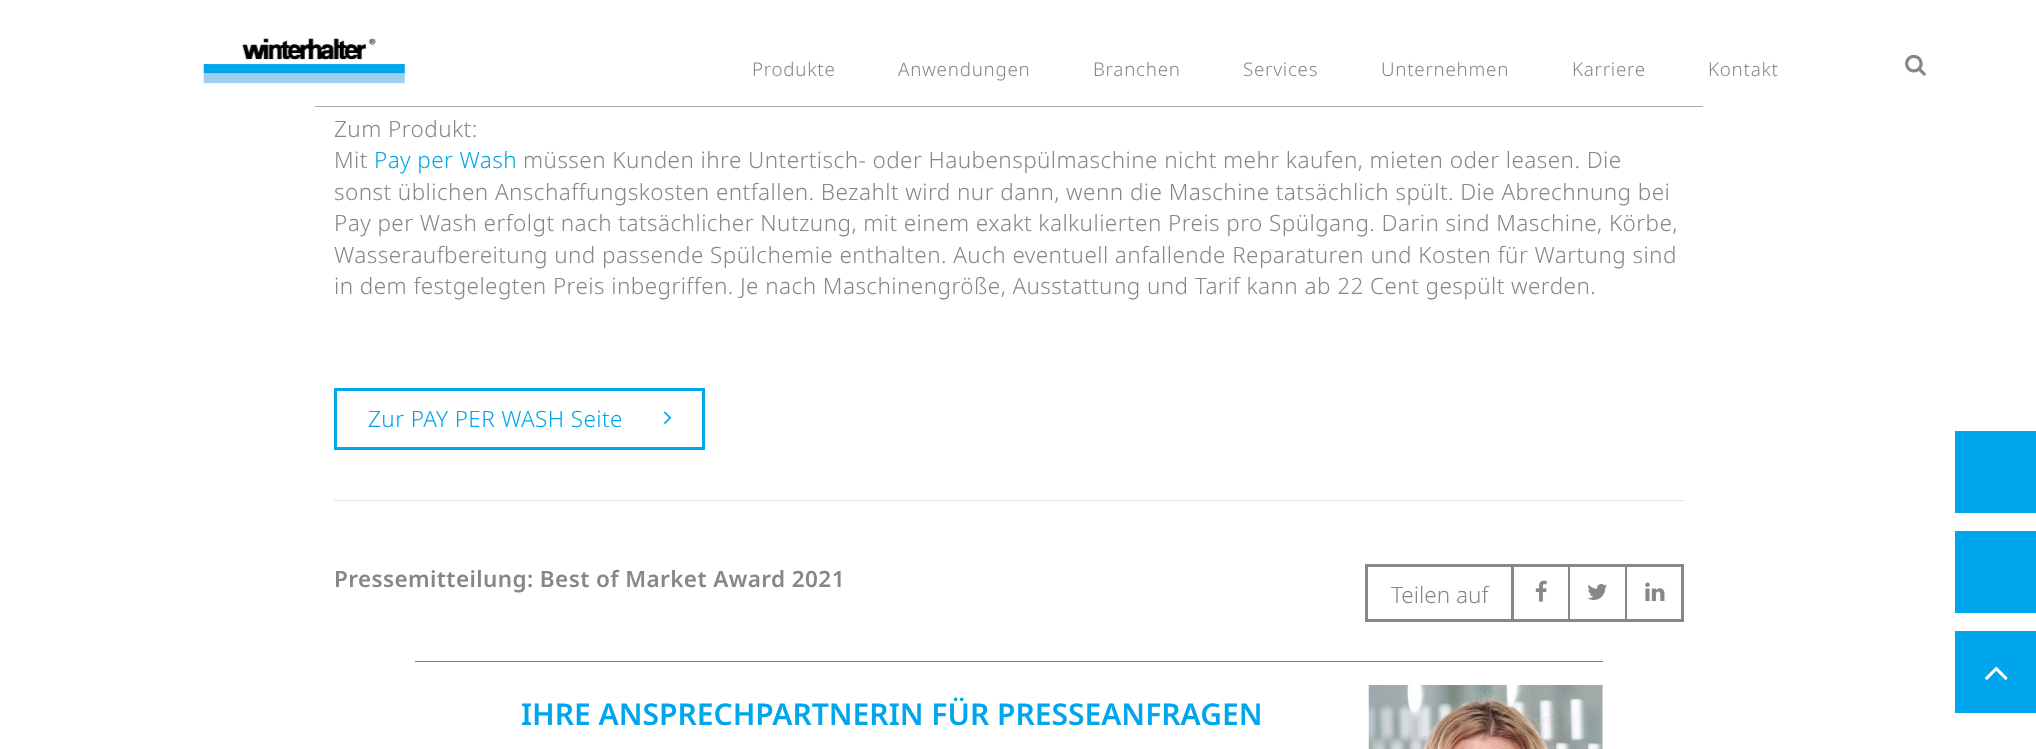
<?xml version="1.0" encoding="UTF-8"?>
<svg xmlns="http://www.w3.org/2000/svg" width="2036" height="749">
    <rect width="100%" height="100%" fill="#FFFFFF"/>
    <image x="203" y="38" width="202" height="46" href="img_01.png"/>
    <text x="752" y="76" font-family="Noto Sans" font-size="18.75" font-weight="300" letter-spacing="0.75" fill="#878787">Produkte</text>
    <text x="898" y="76" font-family="Noto Sans" font-size="18.75" font-weight="300" letter-spacing="0.75" fill="#878787">Anwendungen</text>
    <text x="1093" y="76" font-family="Noto Sans" font-size="18.75" font-weight="300" letter-spacing="0.75" fill="#878787">Branchen</text>
    <text x="1243" y="76" font-family="Noto Sans" font-size="18.75" font-weight="300" letter-spacing="0.75" fill="#878787">Services</text>
    <text x="1381" y="76" font-family="Noto Sans" font-size="18.75" font-weight="300" letter-spacing="0.75" fill="#878787">Unternehmen</text>
    <text x="1572" y="76" font-family="Noto Sans" font-size="18.75" font-weight="300" letter-spacing="0.75" fill="#878787">Karriere</text>
    <text x="1708" y="76" font-family="Noto Sans" font-size="18.75" font-weight="300" letter-spacing="0.75" fill="#878787">Kontakt</text>
    <image x="1905" y="54" width="21" height="22" href="img_02.png"/>
    <rect x="315" y="106" width="1388" height="1" fill="#ABABAB"/>
    <text font-family="Noto Sans" font-size="22.5" font-weight="300" letter-spacing="0.43" fill="#878787">
        <tspan x="334" y="137">Zum Produkt:</tspan>
        <tspan x="334" y="168">Mit</tspan>
    </text>
    <text x="374" y="168" font-family="Noto Sans" font-size="22.5" font-weight="300" letter-spacing="0.4" fill="#00A6EB">Pay per Wash</text>
    <text x="523" y="168" font-family="Noto Sans" font-size="22.5" font-weight="300" letter-spacing="0.43" fill="#878787">müssen Kunden ihre Untertisch- oder Haubenspülmaschine nicht mehr kaufen, mieten oder leasen. Die</text>
    <text font-family="Noto Sans" font-size="22.5" font-weight="300" letter-spacing="0.43" fill="#878787">
        <tspan x="334" y="200">sonst üblichen Anschaffungskosten entfallen. Bezahlt wird nur dann, wenn die Maschine tatsächlich spült. Die Abrechnung bei</tspan>
        <tspan x="334" y="231">Pay per Wash erfolgt nach tatsächlicher Nutzung, mit einem exakt kalkulierten Preis pro Spülgang. Darin sind Maschine, Körbe,</tspan>
        <tspan x="334" y="263">Wasseraufbereitung und passende Spülchemie enthalten. Auch eventuell anfallende Reparaturen und Kosten für Wartung sind</tspan>
        <tspan x="334" y="294">in dem festgelegten Preis inbegriffen. Je nach Maschinengröße, Ausstattung und Tarif kann ab 22 Cent gespült werden.</tspan>
    </text>
    <rect x="335.5" y="389.5" width="368" height="59" fill="none" stroke="#00A6EB" stroke-width="3"/>
    <text x="368" y="427" font-family="Noto Sans" font-size="22.5" font-weight="300" letter-spacing="0.4" fill="#00A6EB">Zur PAY PER WASH Seite</text>
    <image x="664" y="411" width="8" height="13" href="img_03.png"/>
    <rect x="334" y="500" width="1350" height="1" fill="#E3E3E3"/>
    <text x="334" y="587" font-family="Noto Sans" font-size="22.5" font-weight="600" letter-spacing="0.4" fill="#878787">Pressemitteilung: Best of Market Award 2021</text>
    <rect x="1365" y="564" width="319" height="3" fill="#878787"/>
    <rect x="1365" y="619" width="146" height="3" fill="#878787"/>
    <rect x="1365" y="564" width="3" height="57" fill="#878787"/>
    <text x="1391" y="603" font-family="Noto Sans" font-size="22.5" font-weight="300" fill="#878787">Teilen auf</text>
    <rect x="1568" y="564" width="1" height="57" fill="#878787"/>
    <rect x="1511" y="619" width="58" height="3" fill="#878787"/>
    <rect x="1511" y="564" width="3" height="57" fill="#878787"/>
    <image x="1535" y="580" width="12" height="22" href="img_04.png"/>
    <rect x="1625" y="564" width="1" height="57" fill="#878787"/>
    <rect x="1569" y="619" width="57" height="3" fill="#878787"/>
    <rect x="1569" y="564" width="1" height="57" fill="#878787"/>
    <image x="1587" y="584" width="20" height="16" href="img_05.png"/>
    <rect x="1681" y="564" width="3" height="57" fill="#878787"/>
    <rect x="1626" y="619" width="58" height="3" fill="#878787"/>
    <rect x="1626" y="564" width="1" height="57" fill="#878787"/>
    <image x="1645" y="582" width="20" height="19" href="img_06.png"/>
    <rect x="415" y="661" width="1188" height="1" fill="#00A6EB"/>
    <text x="521" y="725" font-family="Noto Sans" font-size="30" font-weight="600" fill="#00A6EB">IHRE ANSPRECHPARTNERIN FÜR PRESSEANFRAGEN</text>
    <image x="1368" y="685" width="235" height="64" href="img_07.png"/>
    <rect x="1955" y="431" width="81" height="82" fill="#00A6EB"/>
    <rect x="1955" y="531" width="81" height="82" fill="#00A6EB"/>
    <rect x="1955" y="631" width="81" height="82" fill="#00A6EB"/>
    <image x="1985" y="666" width="23" height="14" href="img_08.png"/>
</svg>
